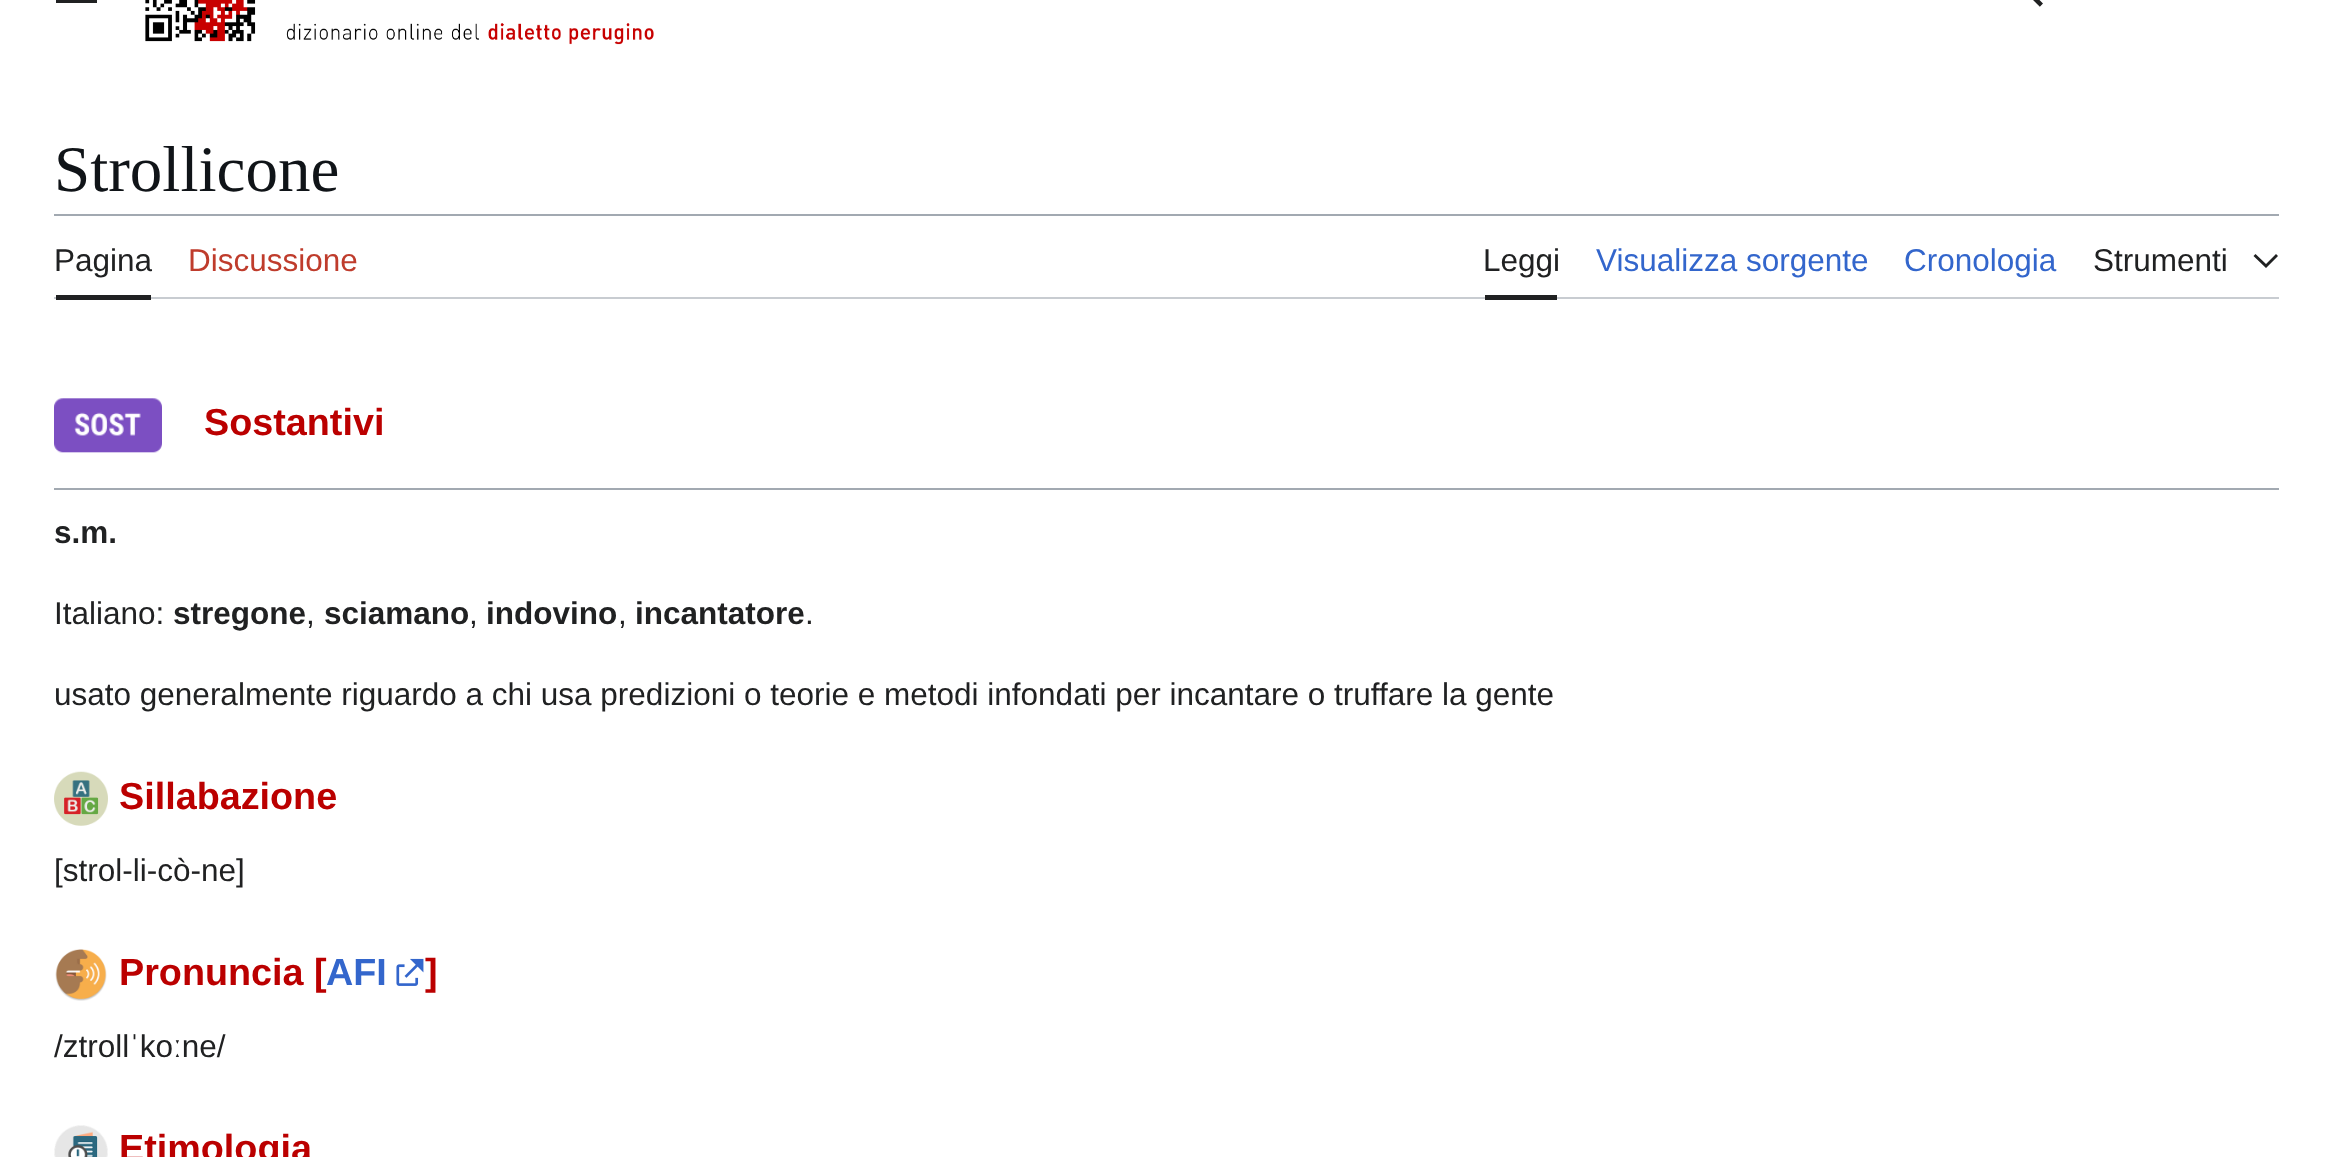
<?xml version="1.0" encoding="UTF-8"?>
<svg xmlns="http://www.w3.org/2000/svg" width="2333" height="1157">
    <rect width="100%" height="100%" fill="#FFFFFF"/>
    <rect x="56" y="0" width="41" height="3" fill="#202122"/>
    <image x="145" y="0" width="111" height="42" href="img_01.png"/>
    <image x="286" y="23" width="368" height="22" href="img_02.png"/>
    <image x="2033" y="0" width="10" height="7" href="img_03.png"/>
    <text x="54" y="191" font-family="Liberation Serif" font-size="65" fill="#101418">Strollicone</text>
    <rect x="54" y="214" width="2225" height="2" fill="#A2A9B1"/>
    <rect x="54" y="297" width="2225" height="2" fill="#C8CCD1"/>
    <rect x="56" y="295" width="95" height="5" fill="#202122"/>
    <text x="54" y="271" font-family="Liberation Sans" font-size="31.5" fill="#202122">Pagina</text>
    <text x="188" y="271" font-family="Liberation Sans" font-size="31.5" fill="#BF3C2C">Discussione</text>
    <rect x="1485" y="295" width="72" height="5" fill="#202122"/>
    <text x="1483" y="271" font-family="Liberation Sans" font-size="31.5" fill="#202122">Leggi</text>
    <text x="1596" y="271" font-family="Liberation Sans" font-size="31.5" fill="#3366CC">Visualizza sorgente</text>
    <text x="1904" y="271" font-family="Liberation Sans" font-size="31.5" fill="#3366CC">Cronologia</text>
    <text x="2093" y="271" font-family="Liberation Sans" font-size="31.5" fill="#202122">Strumenti</text>
    <path d="M 2276 254 L 2266 264 L 2255.5 254 L 2253.5 256 L 2266 268 L 2278 256 Z" fill="#202122"/>
    <image x="54" y="398" width="108" height="55" href="img_04.png"/>
    <text x="204" y="435" font-family="Liberation Sans" font-size="37.75" font-weight="700" fill="#BB0000">Sostantivi</text>
    <rect x="54" y="488" width="2225" height="2" fill="#A2A9B1"/>
    <text x="54" y="543" font-family="Liberation Sans" font-size="31.5" font-weight="700" fill="#202122">s.m.</text>
    <text x="54" y="624" font-family="Liberation Sans" font-size="31.5" fill="#202122">Italiano:</text>
    <text x="173" y="624" font-family="Liberation Sans" font-size="31.5" font-weight="700" fill="#202122">stregone</text>
    <text x="306" y="624" font-family="Liberation Sans" font-size="31.5" fill="#202122">,</text>
    <text x="324" y="624" font-family="Liberation Sans" font-size="31.5" font-weight="700" fill="#202122">sciamano</text>
    <text x="469" y="624" font-family="Liberation Sans" font-size="31.5" fill="#202122">,</text>
    <text x="486" y="624" font-family="Liberation Sans" font-size="31.5" font-weight="700" fill="#202122">indovino</text>
    <text x="618" y="624" font-family="Liberation Sans" font-size="31.5" fill="#202122">,</text>
    <text x="635" y="624" font-family="Liberation Sans" font-size="31.5" font-weight="700" fill="#202122">incantatore</text>
    <text x="805" y="624" font-family="Liberation Sans" font-size="31.5" fill="#202122">.</text>
    <text x="54" y="705" font-family="Liberation Sans" font-size="31.5" fill="#202122">usato generalmente riguardo a chi usa predizioni o teorie e metodi infondati per incantare o truffare la gente</text>
    <image x="54" y="771" width="54" height="55" href="img_05.png"/>
    <text x="119" y="809" font-family="Liberation Sans" font-size="37.75" font-weight="700" fill="#BB0000">Sillabazione</text>
    <text x="54" y="881" font-family="Liberation Sans" font-size="31.5" fill="#202122">[strol-li-cò-ne]</text>
    <image x="55" y="949" width="52" height="52" href="img_06.png"/>
    <text x="119" y="985" font-family="Liberation Sans" font-size="37.75" font-weight="700" fill="#BB0000">Pronuncia [</text>
    <text x="326" y="985" font-family="Liberation Sans" font-size="37.75" font-weight="700" fill="#3366CC">AFI</text>
    <image x="396" y="958" width="28" height="28" href="img_07.png"/>
    <text x="425" y="985" font-family="Liberation Sans" font-size="37.75" font-weight="700" fill="#BB0000">]</text>
    <text x="54" y="1057" font-family="Liberation Sans" font-size="31.5" fill="#202122">/ztrollˈkoːne/</text>
    <image x="54" y="1125" width="54" height="32" href="img_08.png"/>
    <text x="119" y="1161" font-family="Liberation Sans" font-size="37.75" font-weight="700" fill="#BB0000">Etimologia</text>
</svg>
